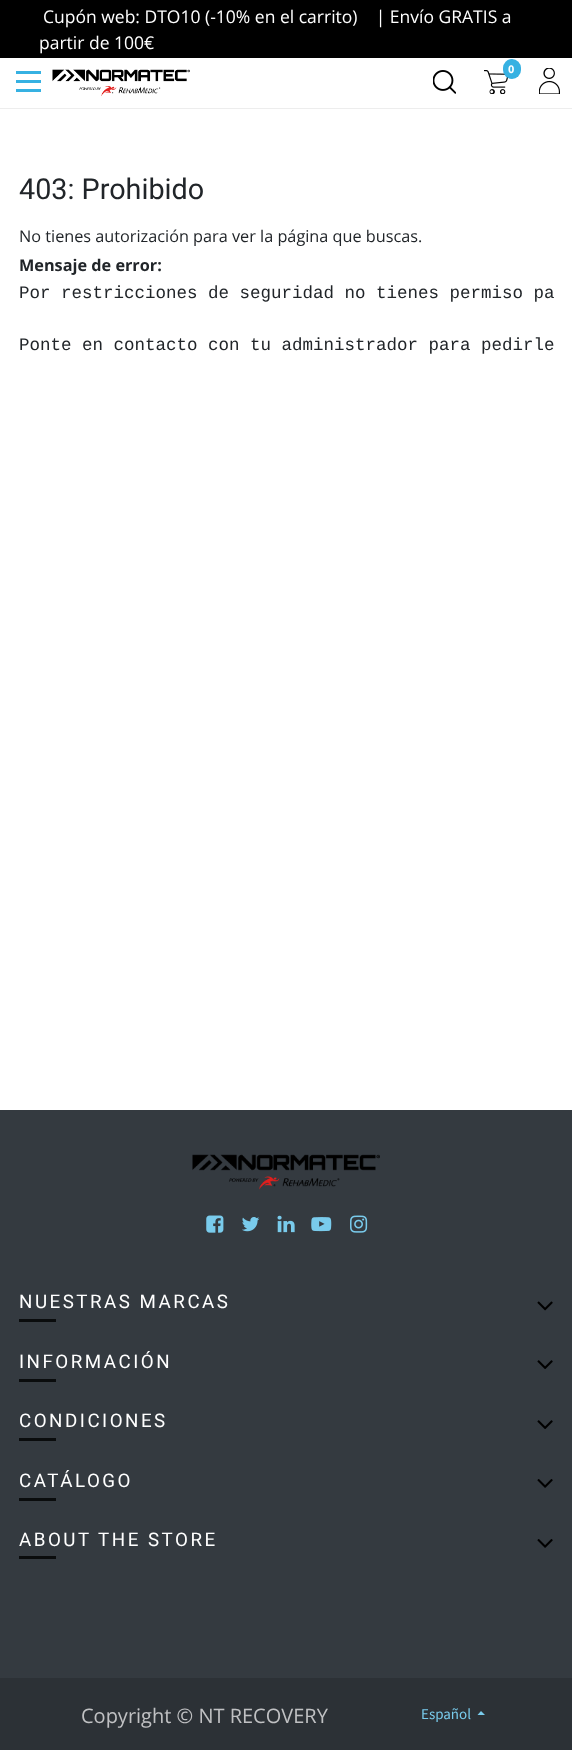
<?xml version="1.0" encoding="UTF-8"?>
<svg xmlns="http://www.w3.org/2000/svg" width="572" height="1750">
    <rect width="100%" height="100%" fill="#FFFFFF"/>
    <rect x="0" y="0" width="572" height="58" fill="#000000"/>
    <text x="43" y="23" font-family="Open Sans" font-size="17.5" fill="#FFFFFF" xml:space="preserve">Cupón web: DTO10 (-10% en el carrito)    | Envío GRATIS a</text>
    <text x="39" y="49" font-family="Open Sans" font-size="17.5" fill="#FFFFFF">partir de 100€</text>
    <rect x="16" y="71" width="25" height="3" fill="#36B1E2"/>
    <rect x="16" y="80" width="25" height="3" fill="#36B1E2"/>
    <rect x="16" y="89" width="25" height="3" fill="#36B1E2"/>
    <image x="52" y="69" width="138" height="27" href="img_01.png"/>
    <image x="433" y="70" width="23" height="24" href="img_02.png"/>
    <image x="484" y="70" width="24" height="24" href="img_03.png"/>
    <rect x="503" y="59" width="18" height="20" rx="9" fill="#36B1E2"/>
    <text x="508" y="73" font-family="Source Sans Pro" font-size="12" font-weight="700" fill="#FFFFFF">0</text>
    <image x="539" y="68" width="21" height="26" href="img_04.png"/>
    <rect x="0" y="108" width="572" height="1" fill="#EDEDED"/>
    <text x="19" y="199" font-family="Roboto" font-size="28.75" fill="#212529">403: Prohibido</text>
    <text x="19" y="242" font-family="Open Sans" font-size="16.25" fill="#212529">No tienes autorización para ver la página que buscas.</text>
    <text x="19" y="271" font-family="Open Sans" font-size="16.25" font-weight="700" fill="#212529">Mensaje de error:</text>
    <text x="19" y="298" font-family="Liberation Mono" font-size="17.5" fill="#212529">Por restricciones de seguridad no tienes permiso pa</text>
    <text x="19" y="350" font-family="Liberation Mono" font-size="17.5" fill="#212529">Ponte en contacto con tu administrador para pedirle</text>
    <rect x="0" y="1110" width="572" height="568" fill="#343A40"/>
    <image x="192" y="1154" width="188" height="36" href="img_05.png"/>
    <image x="206" y="1215" width="18" height="18" href="img_06.png"/>
    <image x="242" y="1217" width="18" height="15" href="img_07.png"/>
    <image x="277" y="1215" width="18" height="18" href="img_08.png"/>
    <image x="311" y="1217" width="21" height="15" href="img_09.png"/>
    <image x="350" y="1215" width="18" height="18" href="img_10.png"/>
    <text x="19" y="1308" font-family="Roboto" font-size="18.75" letter-spacing="2.5" fill="#FFFFFF">NUESTRAS MARCAS</text>
    <rect x="19" y="1319" width="37" height="3" fill="#0A0C0D"/>
    <image x="537" y="1301" width="16" height="10" href="img_11.png"/>
    <text x="19" y="1368" font-family="Roboto" font-size="18.75" letter-spacing="2.5" fill="#FFFFFF">INFORMACIÓN</text>
    <rect x="19" y="1379" width="37" height="3" fill="#0A0C0D"/>
    <image x="537" y="1360" width="16" height="9" href="img_12.png"/>
    <text x="19" y="1427" font-family="Roboto" font-size="18.75" letter-spacing="2.5" fill="#FFFFFF">CONDICIONES</text>
    <rect x="19" y="1438" width="37" height="3" fill="#0A0C0D"/>
    <image x="537" y="1420" width="16" height="9" href="img_12.png"/>
    <text x="19" y="1487" font-family="Roboto" font-size="18.75" letter-spacing="2.5" fill="#FFFFFF">CATÁLOGO</text>
    <rect x="19" y="1498" width="37" height="3" fill="#0A0C0D"/>
    <image x="537" y="1479" width="16" height="9" href="img_13.png"/>
    <text x="19" y="1546" font-family="Roboto" font-size="18.75" letter-spacing="2.5" fill="#FFFFFF">ABOUT THE STORE</text>
    <rect x="19" y="1556" width="37" height="3" fill="#0A0C0D"/>
    <image x="537" y="1539" width="16" height="9" href="img_13.png"/>
    <rect x="0" y="1678" width="572" height="72" fill="#2C3136"/>
    <text x="81" y="1723" font-family="Open Sans" font-size="20" fill="#C0C1C3">Copyright © NT RECOVERY</text>
    <text x="421" y="1719" font-family="Source Sans Pro" font-size="15" fill="#79CBEC">Español</text>
    <path d="M 485 1715 H 477.5 L 481 1711 Z" fill="#79CBEC"/>
</svg>
